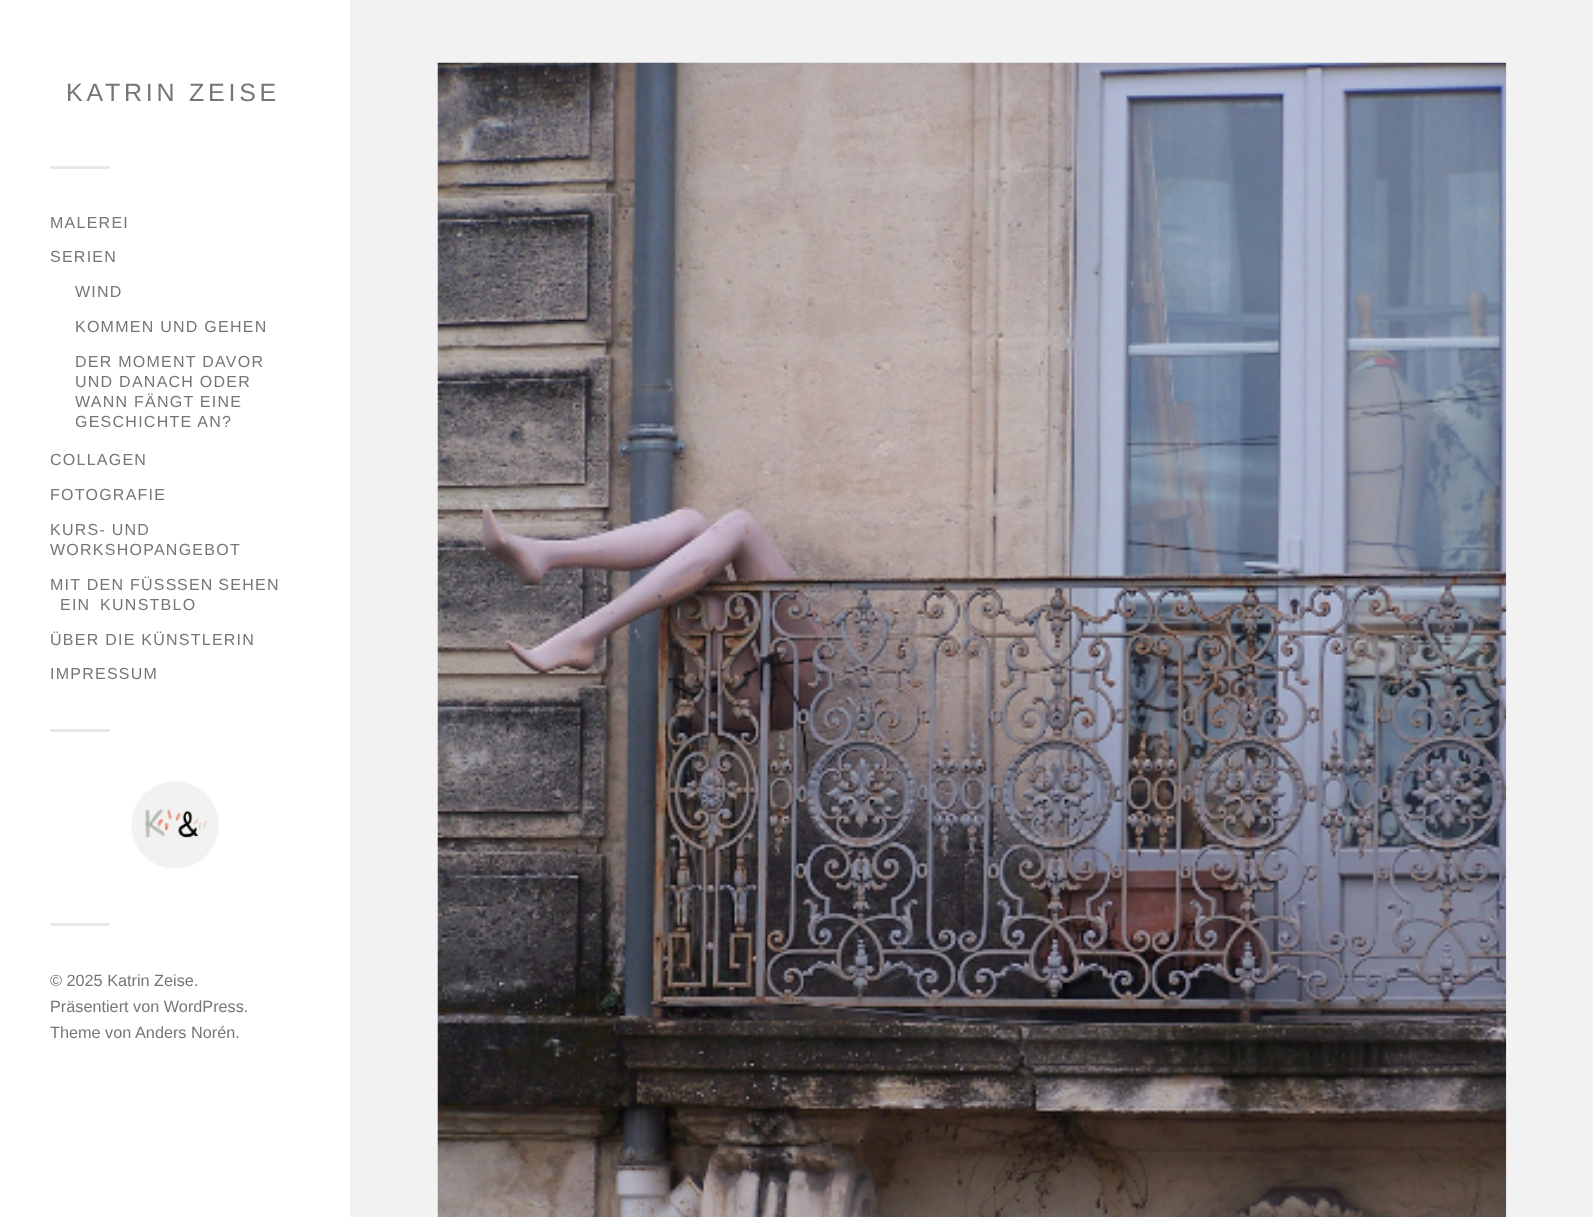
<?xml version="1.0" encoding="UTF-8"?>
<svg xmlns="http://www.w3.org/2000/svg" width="1593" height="1217">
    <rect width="100%" height="100%" fill="#F2F2F2"/>
    <rect x="0" y="0" width="350" height="1217" fill="#FFFFFF"/>
    <text x="66" y="101" font-family="Liberation Sans" font-size="25" letter-spacing="3.75" fill="#767676">KATRIN ZEISE</text>
    <rect x="50" y="166" width="60" height="3" fill="#E7E7E7"/>
    <text x="50" y="228" font-family="Liberation Sans" font-size="16" letter-spacing="1.25" fill="#767676">MALEREI</text>
    <text x="50" y="262" font-family="Liberation Sans" font-size="16" letter-spacing="1.25" fill="#767676">SERIEN</text>
    <text x="75" y="297" font-family="Liberation Sans" font-size="16" letter-spacing="1.25" fill="#767676">WIND</text>
    <text x="75" y="332" font-family="Liberation Sans" font-size="16" letter-spacing="1.25" fill="#767676">KOMMEN UND GEHEN</text>
    <text font-family="Liberation Sans" font-size="16" letter-spacing="1.25" fill="#767676">
        <tspan x="75" y="367">DER MOMENT DAVOR</tspan>
        <tspan x="75" y="387">UND DANACH ODER</tspan>
        <tspan x="75" y="407">WANN FÄNGT EINE</tspan>
        <tspan x="75" y="427">GESCHICHTE AN?</tspan>
    </text>
    <text x="50" y="465" font-family="Liberation Sans" font-size="16" letter-spacing="1.25" fill="#767676">COLLAGEN</text>
    <text x="50" y="500" font-family="Liberation Sans" font-size="16" letter-spacing="1.25" fill="#767676">FOTOGRAFIE</text>
    <text font-family="Liberation Sans" font-size="16" letter-spacing="1.25" fill="#767676">
        <tspan x="50" y="535">KURS- UND</tspan>
        <tspan x="50" y="555">WORKSHOPANGEBOT</tspan>
    </text>
    <text x="50" y="590" font-family="Liberation Sans" font-size="16" letter-spacing="1.25" fill="#767676">MIT DEN FÜSS</text>
    <text x="177" y="590" word-spacing="-1" font-family="Liberation Sans" font-size="16" letter-spacing="1.25" fill="#767676">SEN SEHEN</text>
    <text x="60" y="610" word-spacing="4" font-family="Liberation Sans" font-size="16" letter-spacing="1.25" fill="#767676">EIN KUNSTBLO</text>
    <text x="50" y="645" font-family="Liberation Sans" font-size="16" letter-spacing="1.25" fill="#767676">ÜBER DIE KÜNSTLERIN</text>
    <text x="50" y="679" font-family="Liberation Sans" font-size="16" letter-spacing="1.25" fill="#767676">IMPRESSUM</text>
    <rect x="50" y="729" width="60" height="3" fill="#E7E7E7"/>
    <image x="131" y="781" width="88" height="88" href="img_01.png"/>
    <rect x="50" y="923" width="60" height="3" fill="#E7E7E7"/>
    <text font-family="Liberation Sans" font-size="16.25" fill="#767676">
        <tspan x="50" y="986">© 2025 Katrin Zeise.</tspan>
        <tspan x="50" y="1012">Präsentiert von WordPress.</tspan>
        <tspan x="50" y="1038">Theme von</tspan>
    </text>
    <text x="135" y="1038" font-family="Liberation Sans" font-size="16.25" fill="#767676">Anders Norén.</text>
    <image x="437" y="62" width="1070" height="1155" href="img_02.png"/>
</svg>
